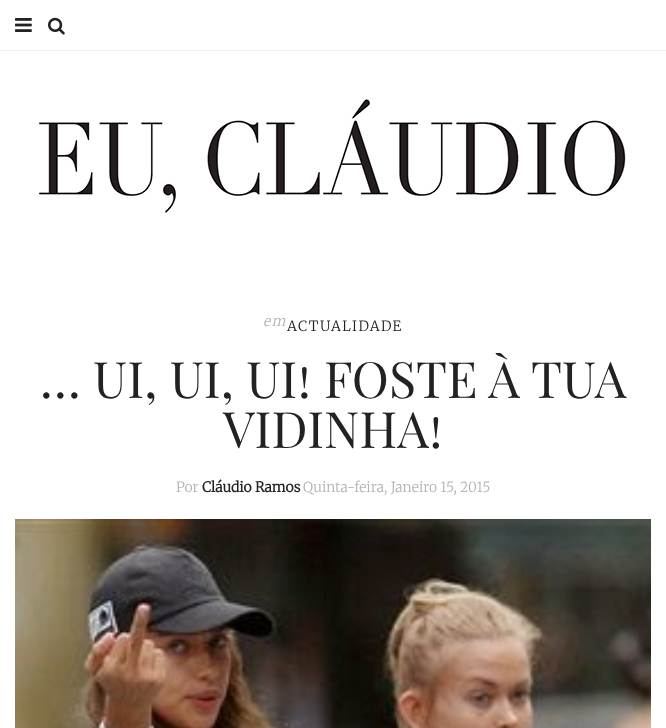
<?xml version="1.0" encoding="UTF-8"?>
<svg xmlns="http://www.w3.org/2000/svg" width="666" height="728">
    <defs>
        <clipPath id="clip1"><rect x="35" y="353" width="596" height="102"/></clipPath>
    </defs>
    <rect width="100%" height="100%" fill="#FFFFFF"/>
    <rect x="0" y="50" width="666" height="1" fill="#EEEEEE"/>
    <image x="15" y="18" width="17" height="14" href="img_01.png"/>
    <image x="48" y="17" width="17" height="18" href="img_02.png"/>
    <image x="39" y="99" width="587" height="114" href="img_03.png"/>
    <text x="263" y="326" font-family="Merriweather" font-size="14" font-weight="300" font-style="italic" letter-spacing="1.4" fill="#B3B3B3">em</text>
    <text x="287" y="331" font-family="Merriweather" font-size="14" font-weight="300" letter-spacing="1.4" fill="#222222">ACTUALIDADE</text>
    <g clip-path="url(#clip1)">
        <text x="40" y="398" font-family="Playfair Display SC" font-size="50" fill="#222222">… UI, UI, UI! FOSTE À TUA</text>
    </g>
    <text x="223" y="448" font-family="Playfair Display SC" font-size="50" fill="#222222">VIDINHA!</text>
    <text x="176" y="492" font-family="Merriweather" font-size="14" font-weight="300" fill="#B3B3B3">Por</text>
    <text x="202" y="492" font-family="Merriweather" font-size="14" font-weight="700" fill="#222222">Cláudio Ramos</text>
    <text x="303" y="492" font-family="Merriweather" font-size="14" font-weight="300" fill="#B3B3B3">Quinta-feira, Janeiro 15, 2015</text>
    <image x="15" y="519" width="636" height="209" href="img_04.png"/>
</svg>
